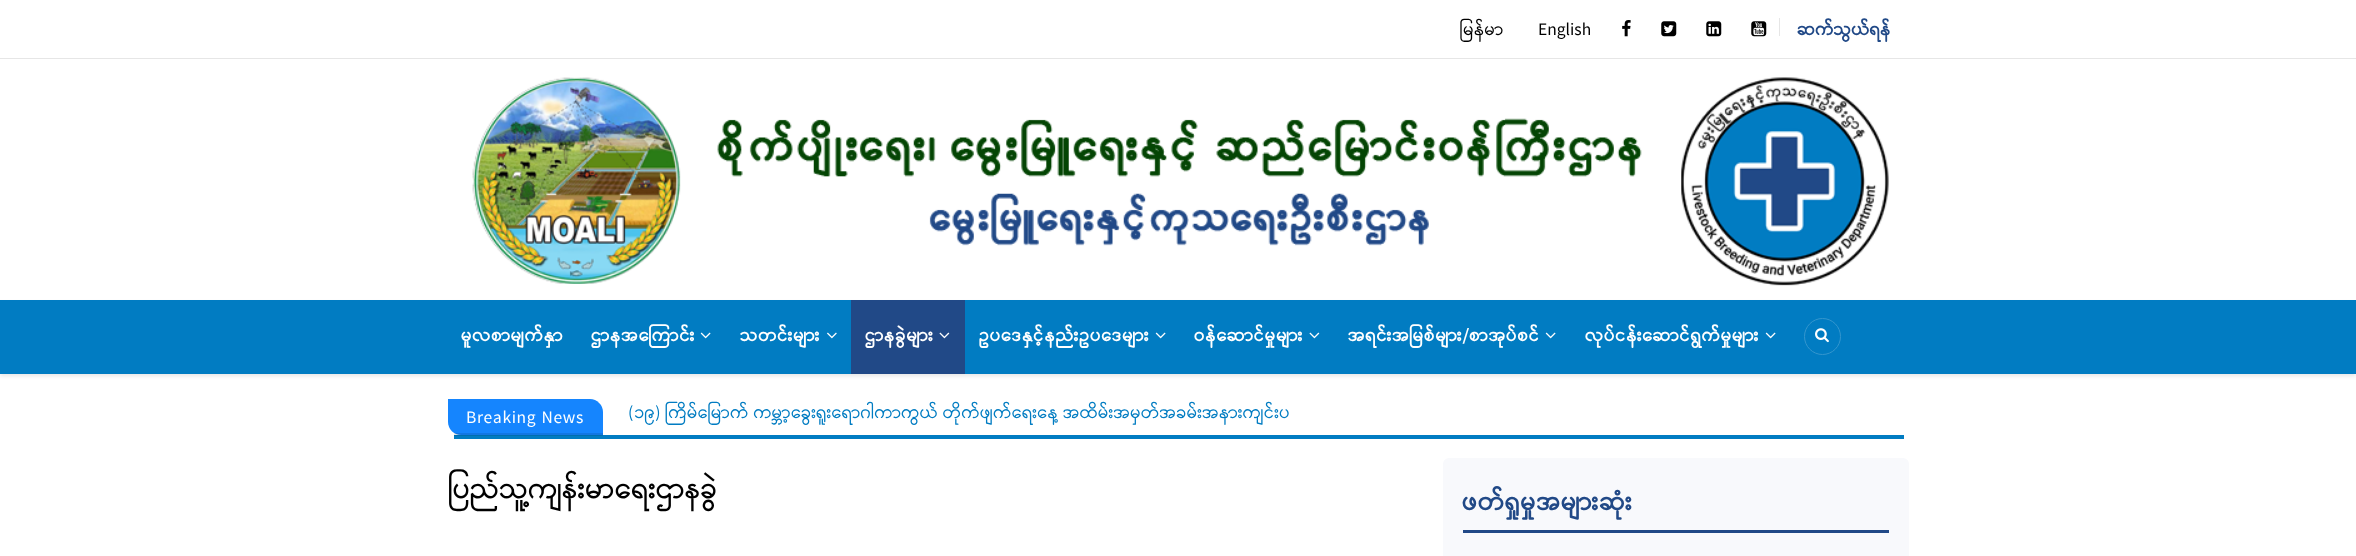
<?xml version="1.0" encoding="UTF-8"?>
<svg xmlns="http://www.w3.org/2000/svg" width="2356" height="556">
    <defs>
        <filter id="blur1" x="-50%" y="-200%" width="200%" height="500%"><feGaussianBlur stdDeviation="2"/></filter>
    </defs>
    <rect width="100%" height="100%" fill="#FFFFFF"/>
    <rect x="0" y="58" width="2356" height="1" fill="#E6E6E6"/>
    <text x="1460" y="35" font-family="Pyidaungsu" font-size="17.5" fill="#000000">မြန်မာ</text>
    <text x="1538" y="35" font-family="Pyidaungsu" font-size="17.5" fill="#000000">English</text>
    <image x="1622" y="20" width="9" height="17" href="img_01.png"/>
    <image x="1661" y="21" width="16" height="16" href="img_02.png"/>
    <image x="1706" y="21" width="16" height="16" href="img_03.png"/>
    <image x="1751" y="21" width="16" height="16" href="img_04.png"/>
    <rect x="1779" y="18" width="1" height="18" fill="#E6E6E6"/>
    <text x="1797" y="35" font-family="Pyidaungsu" font-size="17.5" font-weight="700" fill="#214987">ဆက်သွယ်ရန်</text>
    <image x="472" y="77" width="1417" height="209" href="img_05.png"/>
    <rect x="0" y="303" width="2356" height="73" fill="#000000" fill-opacity="0.1" filter="url(#blur1)"/>
    <rect x="0" y="300" width="2356" height="74" fill="#017CC2"/>
    <text x="461" y="341" font-family="Pyidaungsu" font-size="17.5" font-weight="700" letter-spacing="0.6" fill="#FFFFFF">မူလစာမျက်နှာ</text>
    <text x="591" y="341" font-family="Pyidaungsu" font-size="17.5" font-weight="700" letter-spacing="0.6" fill="#FFFFFF">ဌာနအကြောင်း</text>
    <image x="700" y="332" width="11" height="7" href="img_06.png"/>
    <text x="740" y="341" font-family="Pyidaungsu" font-size="17.5" font-weight="700" letter-spacing="0.6" fill="#FFFFFF">သတင်းများ</text>
    <image x="827" y="332" width="10" height="7" href="img_07.png"/>
    <rect x="851" y="300" width="114" height="74" fill="#214987"/>
    <text x="865" y="341" font-family="Pyidaungsu" font-size="17.5" font-weight="700" letter-spacing="0.6" fill="#FFFFFF">ဌာနခွဲများ</text>
    <image x="939" y="332" width="11" height="7" href="img_08.png"/>
    <text x="979" y="341" font-family="Pyidaungsu" font-size="17.5" font-weight="700" letter-spacing="0.6" fill="#FFFFFF">ဥပဒေနှင့်နည်းဥပဒေများ</text>
    <image x="1155" y="332" width="11" height="7" href="img_06.png"/>
    <text x="1194" y="341" font-family="Pyidaungsu" font-size="17.5" font-weight="700" letter-spacing="0.6" fill="#FFFFFF">ဝန်ဆောင်မှုများ</text>
    <image x="1309" y="332" width="11" height="7" href="img_09.png"/>
    <text x="1348" y="341" font-family="Pyidaungsu" font-size="17.5" font-weight="700" letter-spacing="0.6" fill="#FFFFFF">အရင်းအမြစ်များ/စာအုပ်စင်</text>
    <image x="1545" y="332" width="11" height="7" href="img_06.png"/>
    <text x="1585" y="341" font-family="Pyidaungsu" font-size="17.5" font-weight="700" letter-spacing="0.6" fill="#FFFFFF">လုပ်ငန်းဆောင်ရွက်မှုများ</text>
    <image x="1765" y="332" width="11" height="7" href="img_06.png"/>
    <circle cx="1822.5" cy="336.5" r="18" fill="none" stroke="#3496CE"/>
    <image x="1815" y="328" width="14" height="15" href="img_10.png"/>
    <path d="M 448 399 H 590 C 597 399 603 405 603 412 V 435 H 461 C 454 435 448 429 448 422 Z" fill="#1585FE"/>
    <rect x="454" y="435" width="1450" height="4" fill="#017CC2"/>
    <rect x="454" y="433" width="149" height="3" fill="#000000" fill-opacity="0.1"/>
    <text x="466" y="423" font-family="Pyidaungsu" font-size="17.5" letter-spacing="0.6" fill="#FFFFFF">Breaking News</text>
    <text x="628" y="418" font-family="Pyidaungsu" font-size="17.5" fill="#017CC2">(၁၉) ကြိမ်မြောက် ကမ္ဘာ့ခွေးရူးရောဂါကာကွယ် တိုက်ဖျက်ရေးနေ့ အထိမ်းအမှတ်အခမ်းအနားကျင်းပ</text>
    <text x="447" y="498" font-family="Padauk" font-size="30" font-weight="700" fill="#000000">ပြည်သူ့ကျန်းမာရေးဌာနခွဲ</text>
    <rect x="1443" y="458" width="466" height="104" rx="6" fill="#F8F9FC"/>
    <rect x="1463" y="530" width="426" height="3" fill="#214987"/>
    <text x="1462" y="510" font-family="Pyidaungsu" font-size="25" font-weight="700" letter-spacing="0.6" fill="#214987">ဖတ်ရှုမှုအများဆုံး</text>
</svg>
